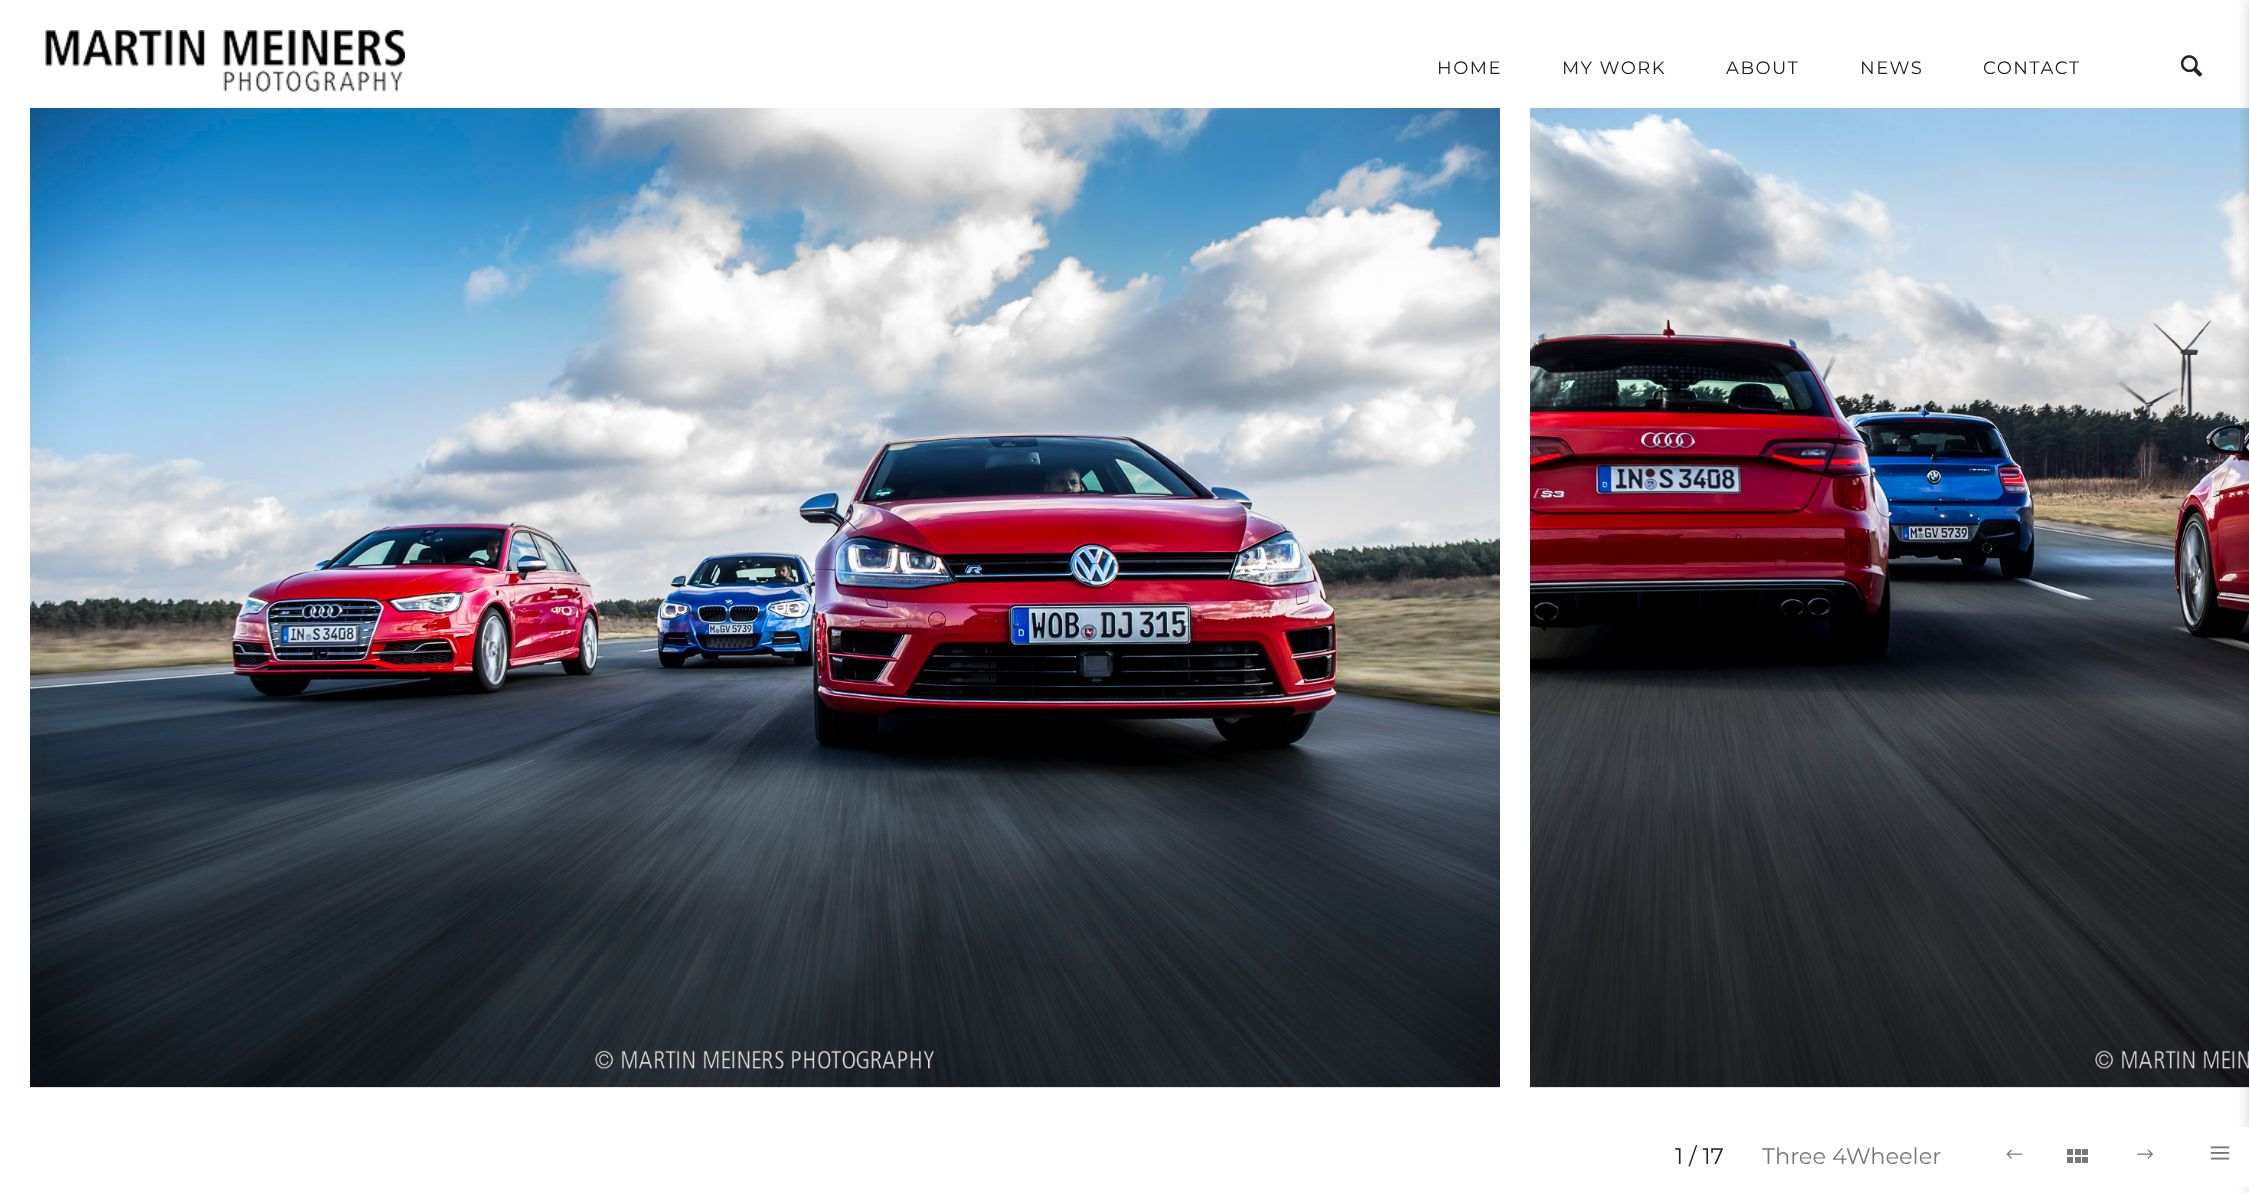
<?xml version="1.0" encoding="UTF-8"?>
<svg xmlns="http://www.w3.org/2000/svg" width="2249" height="1194">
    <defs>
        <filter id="blur1" x="-50%" y="-200%" width="200%" height="500%"><feGaussianBlur stdDeviation="7.5"/></filter>
    </defs>
    <rect width="100%" height="100%" fill="#FFFFFF"/>
    <image x="45" y="30" width="360" height="62" href="img_01.png"/>
    <text x="1437" y="74" font-family="Montserrat" font-size="18" letter-spacing="1.5" fill="#222222">HOME</text>
    <text x="1562" y="74" font-family="Montserrat" font-size="18" letter-spacing="1.5" fill="#222222">MY WORK</text>
    <text x="1726" y="74" font-family="Montserrat" font-size="18" letter-spacing="1.5" fill="#222222">ABOUT</text>
    <text x="1860" y="74" font-family="Montserrat" font-size="18" letter-spacing="1.5" fill="#222222">NEWS</text>
    <text x="1983" y="74" font-family="Montserrat" font-size="18" letter-spacing="1.5" fill="#222222">CONTACT</text>
    <image x="2180" y="55" width="23" height="22" href="img_02.png"/>
    <image x="30" y="108" width="1470" height="980" href="img_03.png"/>
    <image x="1530" y="108" width="719" height="980" href="img_04.png"/>
    <text x="1675" y="1164" font-family="Montserrat" font-size="22.5" fill="#222222">1 / 17</text>
    <text x="1762" y="1164" font-family="Montserrat" font-size="22.5" fill="#777777">Three 4Wheeler</text>
    <image x="2006" y="1149" width="17" height="10" href="img_05.png"/>
    <rect x="2067" y="1149" width="6" height="6" fill="#777777"/>
    <rect x="2075" y="1149" width="6" height="6" fill="#777777"/>
    <rect x="2082" y="1149" width="6" height="6" fill="#777777"/>
    <rect x="2067" y="1157" width="6" height="6" fill="#777777"/>
    <rect x="2075" y="1157" width="6" height="6" fill="#777777"/>
    <rect x="2082" y="1157" width="6" height="6" fill="#777777"/>
    <image x="2137" y="1149" width="16" height="10" href="img_06.png"/>
    <rect x="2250" y="-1" width="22" height="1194" fill="#000000" fill-opacity="0.2" filter="url(#blur1)"/>
    <rect x="2238" y="1127" width="11" height="60" fill="#FFFFFF"/>
    <image x="2210" y="1146" width="20" height="14" href="img_07.png"/>
</svg>
